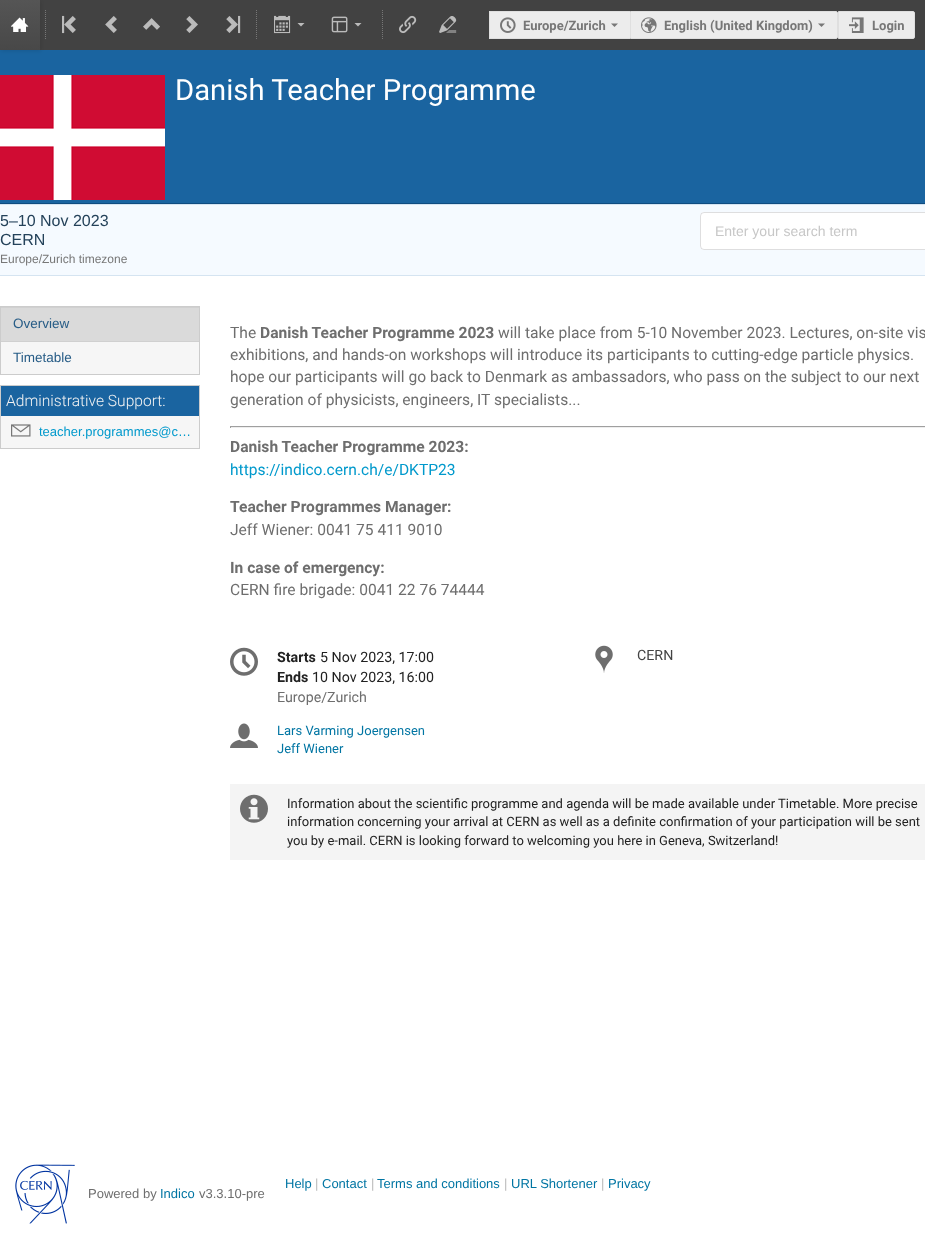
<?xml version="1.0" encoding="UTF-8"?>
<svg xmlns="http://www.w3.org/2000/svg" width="925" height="1239">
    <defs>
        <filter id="blur1" x="-50%" y="-200%" width="200%" height="500%"><feGaussianBlur stdDeviation="2"/></filter>
        <linearGradient id="g1" gradientUnits="userSpaceOnUse" x1="20" y1="0" x2="20" y2="50"><stop offset="0" stop-color="#555555"/><stop offset="1" stop-color="#484848"/></linearGradient>
    </defs>
    <rect width="100%" height="100%" fill="#FFFFFF"/>
    <rect x="40" y="0" width="885" height="50" fill="#424242"/>
    <rect x="0" y="50" width="925" height="153" fill="#1A64A0"/>
    <rect x="1" y="1" width="40" height="50" fill="#141414" fill-opacity="0.1" filter="url(#blur1)"/>
    <rect x="0" y="0" width="40" height="50" fill="url(#g1)"/>
    <image x="11" y="17" width="18" height="15" href="img_01.png"/>
    <path d="M 45.5 10 V 40" fill="none" stroke="#777777" stroke-dasharray="1 1"/>
    <image x="62" y="15" width="14" height="19" href="img_02.png"/>
    <image x="105" y="16" width="12" height="17" href="img_03.png"/>
    <image x="143" y="18" width="17" height="12" href="img_04.png"/>
    <image x="186" y="16" width="12" height="17" href="img_05.png"/>
    <image x="226" y="15" width="15" height="19" href="img_06.png"/>
    <path d="M 256.5 10 V 40" fill="none" stroke="#777777" stroke-dasharray="1 1"/>
    <image x="274" y="15" width="17" height="19" href="img_07.png"/>
    <path d="M 297.5 23 L 301 26.5 L 304.5 23 Z" fill="#BBBBBB"/>
    <image x="331" y="16" width="17" height="17" href="img_08.png"/>
    <path d="M 354.5 23 L 358 26.5 L 361.5 23 Z" fill="#BBBBBB"/>
    <path d="M 382.5 10 V 40" fill="none" stroke="#777777" stroke-dasharray="1 1"/>
    <image x="399" y="15" width="18" height="19" href="img_09.png"/>
    <image x="439" y="16" width="18" height="17" href="img_10.png"/>
    <rect x="490" y="12" width="140" height="26" fill="#ECECEC"/>
    <rect x="489" y="11" width="141" height="1" fill="#DFDFDF"/>
    <rect x="489" y="38" width="141" height="1" fill="#DFDFDF"/>
    <rect x="489" y="11" width="1" height="28" fill="#DFDFDF"/>
    <image x="500" y="17" width="16" height="16" href="img_11.png"/>
    <text x="523" y="30" font-family="Roboto" font-size="13" font-weight="700" fill="#777777">Europe/Zurich</text>
    <path d="M 611 23.5 L 614.5 27 L 618 23.5 Z" fill="#777777"/>
    <path d="M 630.5 11.5 H 836 C 837 11.5 837.5 12 837.5 13 V 37 C 837.5 38 837 38.5 836 38.5 H 630.5 Z" fill="#ECECEC" stroke="#DFDFDF"/>
    <image x="641" y="17" width="16" height="16" href="img_12.png"/>
    <text x="664" y="30" font-family="Roboto" font-size="13" font-weight="700" fill="#777777">English (United Kingdom)</text>
    <path d="M 818 23.5 L 821.5 27 L 825 23.5 Z" fill="#777777"/>
    <path d="M 838.5 11.5 H 913 C 914 11.5 914.5 12 914.5 13 V 37 C 914.5 38 914 38.5 913 38.5 H 838.5 Z" fill="#ECECEC" stroke="#DFDFDF"/>
    <image x="849" y="17" width="15" height="16" href="img_13.png"/>
    <text x="872" y="30" font-family="Roboto" font-size="13" font-weight="700" fill="#777777">Login</text>
    <rect x="0" y="203" width="925" height="1" fill="#0F4C80"/>
    <image x="0" y="75" width="165" height="125" href="img_14.png"/>
    <text x="175" y="100" font-family="Roboto" font-size="29.25" fill="#FFFFFF">Danish Teacher Programme</text>
    <rect x="0" y="205" width="925" height="70" fill="#F5FAFF"/>
    <rect x="0" y="204" width="925" height="1" fill="#D5E4F1"/>
    <rect x="0" y="275" width="925" height="1" fill="#D5E4F1"/>
    <text font-family="Liberation Sans" font-size="16" fill="#24425A">
        <tspan x="0" y="226">5–10 Nov 2023</tspan>
        <tspan x="0" y="245">CERN</tspan>
    </text>
    <text x="0" y="263" font-family="Liberation Sans" font-size="12" fill="#777777">Europe/Zurich timezone</text>
    <rect x="700" y="212" width="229" height="38" rx="4" fill="#FFFFFF"/>
    <rect x="700.5" y="212.5" width="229" height="37" rx="3.5" fill="none" stroke="#222426" stroke-opacity="0.15"/>
    <text x="715" y="236" font-family="'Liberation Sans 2'" font-size="14" fill="#C7C7C7">Enter your search term</text>
    <rect x="1" y="342" width="198" height="32" fill="#F6F6F6"/>
    <rect x="0.5" y="306.5" width="199" height="68" fill="none" stroke="#CCCCCC"/>
    <rect x="1" y="308" width="198" height="33" fill="#DADADA"/>
    <rect x="1" y="307" width="198" height="1" fill="#D0D0D0"/>
    <rect x="1" y="341" width="198" height="1" fill="#D0D0D0"/>
    <text x="13" y="328" font-family="'Liberation Sans 2'" font-size="13.5" fill="#275C86">Overview</text>
    <text x="13" y="362" font-family="'Liberation Sans 2'" font-size="13.5" fill="#275C86">Timetable</text>
    <rect x="1" y="416" width="198" height="32" fill="#F6F6F6"/>
    <rect x="0.5" y="385.5" width="199" height="63" fill="none" stroke="#CCCCCC"/>
    <rect x="1" y="386" width="198" height="30" fill="#1A64A0"/>
    <text x="6" y="406" font-family="Roboto" font-size="15.6" font-weight="300" fill="#F3F3F3">Administrative Support:</text>
    <image x="11" y="424" width="20" height="13" href="img_15.png"/>
    <text x="39" y="436" font-family="Liberation Sans" font-size="13" fill="#0099CC">teacher.programmes@c…</text>
    <text x="230" y="338" font-family="Roboto" font-size="15.6" fill="#6E6E6E">The</text>
    <text x="260" y="338" font-family="Roboto" font-size="15.6" font-weight="700" fill="#6E6E6E">Danish Teacher Programme 2023</text>
    <text x="498" y="338" font-family="Roboto" font-size="15.6" fill="#6E6E6E">will take place from 5-10 November 2023. Lectures, on-site vis</text>
    <text font-family="Roboto" font-size="15.6" fill="#6E6E6E">
        <tspan x="230" y="360">exhibitions, and hands-on workshops will introduce its participants to cutting-edge particle physics.</tspan>
        <tspan x="230" y="382">hope our participants will go back to Denmark as ambassadors, who pass on the subject to our next</tspan>
        <tspan x="230" y="405">generation of physicists, engineers, IT specialists...</tspan>
    </text>
    <rect x="230" y="426" width="695" height="1" fill="#9F9F9F"/>
    <rect x="230" y="427" width="695" height="1" fill="#EEEEEE"/>
    <rect x="230" y="426" width="1" height="2" fill="#9F9F9F"/>
    <text x="230" y="452" font-family="Roboto" font-size="15.6" font-weight="700" fill="#6E6E6E">Danish Teacher Programme 2023:</text>
    <text x="230" y="475" font-family="Roboto" font-size="15.6" fill="#0099CC">https://indico.cern.ch/e/DKTP23</text>
    <text x="230" y="512" font-family="Roboto" font-size="15.6" font-weight="700" fill="#6E6E6E">Teacher Programmes Manager:</text>
    <text x="230" y="535" font-family="Roboto" font-size="15.6" fill="#6E6E6E">Jeff Wiener: 0041 75 411 9010</text>
    <text x="230" y="573" font-family="Roboto" font-size="15.6" font-weight="700" fill="#6E6E6E">In case of emergency:</text>
    <text x="230" y="595" font-family="Roboto" font-size="15.6" fill="#6E6E6E">CERN fire brigade: 0041 22 76 74444</text>
    <image x="230" y="647" width="28" height="29" href="img_16.png"/>
    <text x="277" y="662" font-family="Roboto" font-size="14.25" font-weight="700" fill="#212121">Starts</text>
    <text x="320" y="662" font-family="Roboto" font-size="14.25" fill="#212121">5 Nov 2023, 17:00</text>
    <text x="277" y="682" font-family="Roboto" font-size="14.25" font-weight="700" fill="#212121">Ends</text>
    <text x="312" y="682" font-family="Roboto" font-size="14.25" fill="#212121">10 Nov 2023, 16:00</text>
    <text x="277" y="702" font-family="Roboto" font-size="14.25" fill="#6E6E6E">Europe/Zurich</text>
    <image x="595" y="645" width="18" height="28" href="img_17.png"/>
    <text x="637" y="660" font-family="Roboto" font-size="14.25" fill="#444444">CERN</text>
    <image x="230" y="723" width="28" height="25" href="img_18.png"/>
    <text font-family="Roboto" font-size="13" fill="#0075A3">
        <tspan x="277" y="735">Lars Varming Joergensen</tspan>
        <tspan x="277" y="753">Jeff Wiener</tspan>
    </text>
    <rect x="230" y="784" width="695" height="76" fill="#F4F4F4"/>
    <image x="240" y="794" width="28" height="29" href="img_19.png"/>
    <text font-family="Roboto" font-size="13" fill="#212121">
        <tspan x="287" y="808">Information about the scientific programme and agenda will be made available under Timetable. More precise</tspan>
        <tspan x="287" y="826">information concerning your arrival at CERN as well as a definite confirmation of your participation will be sent</tspan>
        <tspan x="287" y="845">you by e-mail. CERN is looking forward to welcoming you here in Geneva, Switzerland!</tspan>
    </text>
    <text x="285" y="1188" font-family="Liberation Sans" font-size="13" fill="#0075A3">Help</text>
    <text x="315" y="1188" font-family="Liberation Sans" font-size="13" fill="#BBBBBB">|</text>
    <text x="322" y="1188" font-family="Liberation Sans" font-size="13" fill="#0075A3">Contact</text>
    <text x="371" y="1188" font-family="Liberation Sans" font-size="13" fill="#BBBBBB">|</text>
    <text x="377" y="1188" font-family="Liberation Sans" font-size="13" fill="#0075A3">Terms and conditions</text>
    <text x="504" y="1188" font-family="Liberation Sans" font-size="13" fill="#BBBBBB">|</text>
    <text x="511" y="1188" font-family="Liberation Sans" font-size="13" fill="#0075A3">URL Shortener</text>
    <text x="601" y="1188" font-family="Liberation Sans" font-size="13" fill="#BBBBBB">|</text>
    <text x="608" y="1188" font-family="Liberation Sans" font-size="13" fill="#0075A3">Privacy</text>
    <image x="15" y="1164" width="60" height="60" href="img_20.png"/>
    <text x="88" y="1198" font-family="Liberation Sans" font-size="13" fill="#6E6E6E">Powered by</text>
    <text x="160" y="1198" font-family="Liberation Sans" font-size="13" fill="#0075A3">Indico</text>
    <text x="199" y="1198" font-family="Liberation Sans" font-size="13" fill="#6E6E6E">v3.3.10-pre</text>
</svg>
